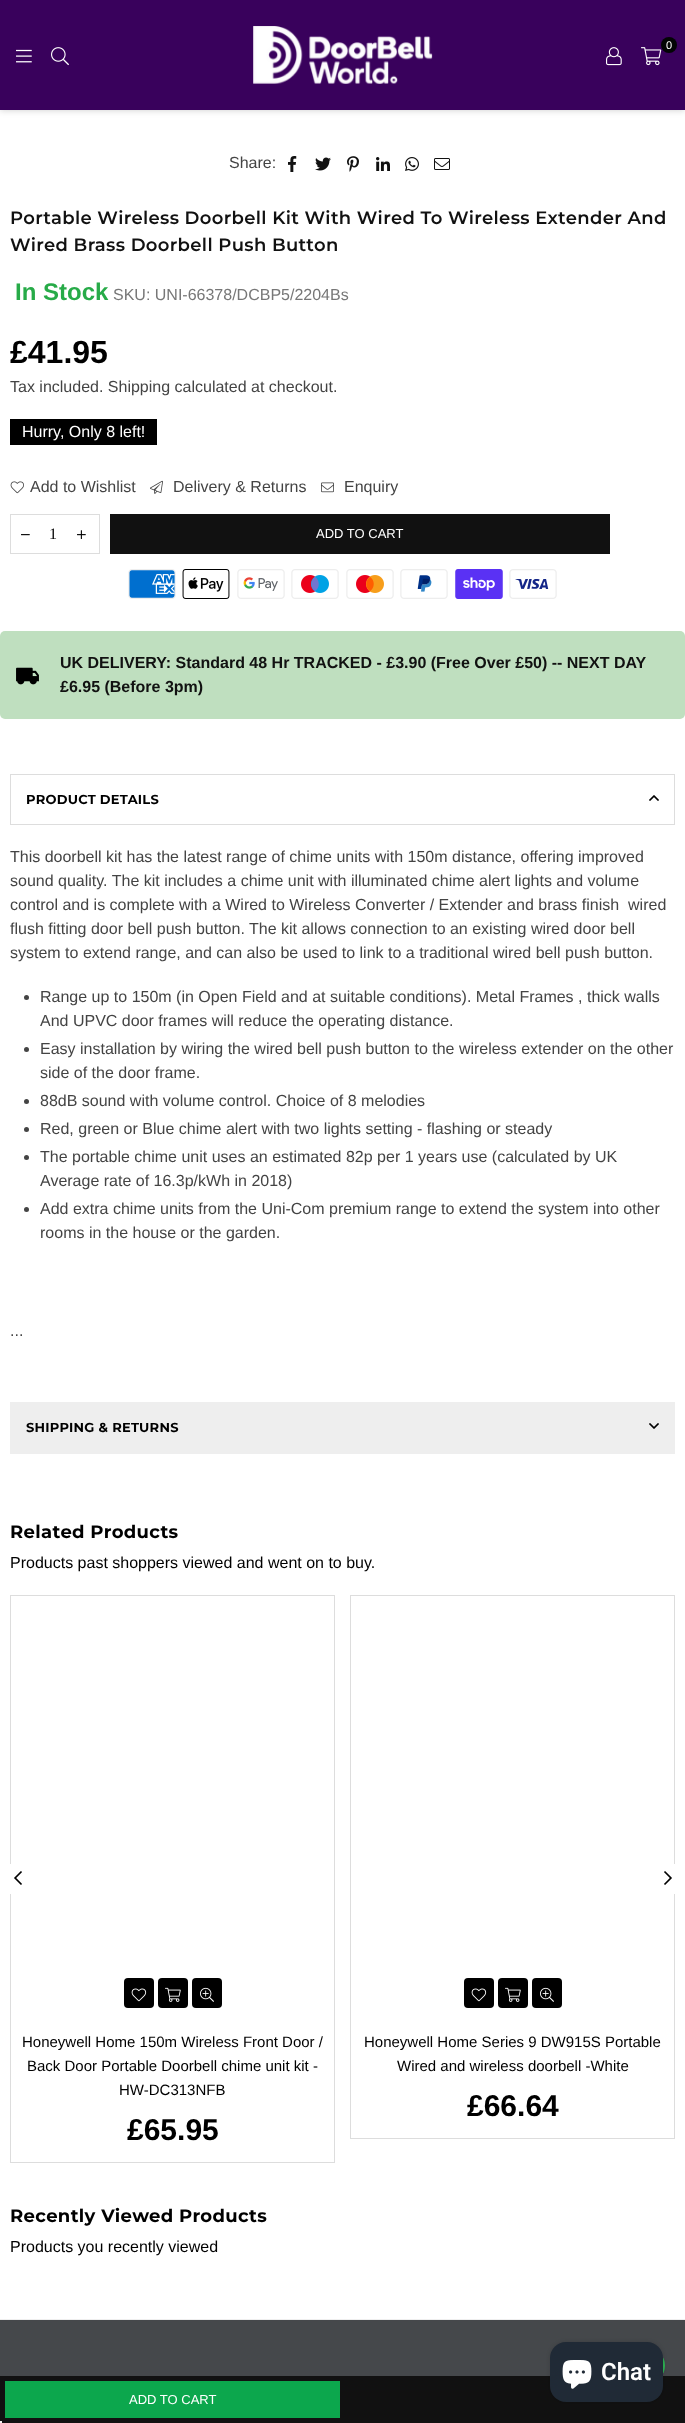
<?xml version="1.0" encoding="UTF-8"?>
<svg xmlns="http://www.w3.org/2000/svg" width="685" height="2423">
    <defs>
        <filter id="blur1" x="-50%" y="-200%" width="200%" height="500%"><feGaussianBlur stdDeviation="3.5"/></filter>
        <filter id="blur2" x="-50%" y="-200%" width="200%" height="500%"><feGaussianBlur stdDeviation="2.5"/></filter>
    </defs>
    <rect width="100%" height="100%" fill="#FFFFFF"/>
    <rect x="0" y="0" width="685" height="110" fill="#000000" fill-opacity="0.2" filter="url(#blur1)"/>
    <rect x="0" y="0" width="685" height="110" fill="#39015C"/>
    <image x="253" y="26" width="180" height="58" href="img_01.png"/>
    <image x="641" y="47" width="21" height="19" href="img_02.png"/>
    <circle cx="669" cy="45" r="8" fill="#030505"/>
    <text x="666" y="49" font-family="Liberation Sans" font-size="11" fill="#FFFFFF">0</text>
    <image x="606" y="47" width="16" height="19" href="img_03.png"/>
    <image x="16" y="49" width="16" height="14" href="img_04.png"/>
    <image x="51" y="47" width="18" height="19" href="img_05.png"/>
    <text x="229" y="168" font-family="Liberation Sans" font-size="16" fill="#444444">Share:</text>
    <image x="288" y="156" width="9" height="16" href="img_06.png"/>
    <image x="315" y="157" width="16" height="14" href="img_07.png"/>
    <image x="347" y="156" width="12" height="16" href="img_08.png"/>
    <image x="376" y="157" width="14" height="14" href="img_09.png"/>
    <image x="405" y="157" width="14" height="14" href="img_10.png"/>
    <image x="434" y="158" width="16" height="12" href="img_11.png"/>
    <text font-family="Montserrat" font-size="18" font-weight="600" letter-spacing="0.35" fill="#111111">
        <tspan x="10" y="224">Portable Wireless Doorbell Kit With Wired To Wireless Extender And</tspan>
        <tspan x="10" y="251">Wired Brass Doorbell Push Button</tspan>
    </text>
    <text x="15" y="300" font-family="Liberation Sans" font-size="24" font-weight="700" fill="#27AB48">In Stock</text>
    <text x="113" y="300" font-family="Liberation Sans" font-size="16" fill="#777777">SKU: UNI-66378/DCBP5/2204Bs</text>
    <text x="10" y="363" font-family="Liberation Sans" font-size="32" font-weight="700" fill="#000000">£41.95</text>
    <text x="10" y="392" font-family="Liberation Sans" font-size="16" fill="#444444">Tax included. Shipping calculated at checkout.</text>
    <rect x="10" y="419" width="147" height="26" fill="#000000"/>
    <text x="22" y="437" font-family="Liberation Sans" font-size="16" fill="#FFFFFF">Hurry, Only 8 left!</text>
    <image x="10" y="481" width="14" height="13" href="img_12.png"/>
    <text x="30" y="492" font-family="Liberation Sans" font-size="16" fill="#444444">Add to Wishlist</text>
    <image x="150" y="480" width="13" height="14" href="img_13.png"/>
    <text x="173" y="492" font-family="Liberation Sans" font-size="16" fill="#444444">Delivery &amp; Returns</text>
    <image x="321" y="482" width="13" height="11" href="img_14.png"/>
    <text x="344" y="492" font-family="Liberation Sans" font-size="16" fill="#444444">Enquiry</text>
    <rect x="10.5" y="514.5" width="89" height="39" fill="none" stroke="#DDDDDD"/>
    <image x="21" y="534" width="9" height="2" href="img_15.png"/>
    <text x="49" y="539" font-family="Liberation Serif" font-size="16" fill="#000000">1</text>
    <image x="77" y="530" width="9" height="9" href="img_16.png"/>
    <rect x="110" y="514" width="500" height="40" fill="#111111"/>
    <text x="316" y="538" font-family="Liberation Sans" font-size="13" fill="#FFFFFF">ADD TO CART</text>
    <image x="128" y="569" width="48" height="30" href="img_17.png"/>
    <image x="182" y="569" width="48" height="30" href="img_18.png"/>
    <image x="237" y="569" width="48" height="30" href="img_19.png"/>
    <image x="291" y="569" width="48" height="30" href="img_20.png"/>
    <image x="346" y="569" width="48" height="30" href="img_21.png"/>
    <image x="400" y="569" width="48" height="30" href="img_22.png"/>
    <image x="455" y="569" width="48" height="30" href="img_23.png"/>
    <image x="509" y="569" width="48" height="30" href="img_24.png"/>
    <rect x="0" y="631" width="685" height="88" rx="5" fill="#BFDFBF"/>
    <image x="16" y="667" width="23" height="18" href="img_25.png"/>
    <text font-family="Liberation Sans" font-size="16" font-weight="700" fill="#111111">
        <tspan x="60" y="668">UK DELIVERY: Standard 48 Hr TRACKED - £3.90 (Free Over £50) -- NEXT DAY</tspan>
        <tspan x="60" y="692">£6.95 (Before 3pm)</tspan>
    </text>
    <rect x="10.5" y="774.5" width="664" height="50" fill="none" stroke="#DDDDDD"/>
    <text x="26" y="804" font-family="Montserrat" font-size="13" font-weight="700" letter-spacing="0.25" fill="#000000">PRODUCT DETAILS</text>
    <image x="649" y="795" width="10" height="6" href="img_26.png"/>
    <text font-family="Liberation Sans" font-size="16" fill="#444444" xml:space="preserve"><tspan x="10" y="862">This doorbell kit has the latest range of chime units with 150m distance, offering improved</tspan><tspan x="10" y="886">sound quality. The kit includes a chime unit with illuminated chime alert lights and volume</tspan><tspan x="10" y="910">control and is complete with a Wired to Wireless Converter / Extender and brass finish  wired</tspan><tspan x="10" y="934">flush fitting door bell push button. The kit allows connection to an existing wired door bell</tspan><tspan x="10" y="958">system to extend range, and can also be used to link to a traditional wired bell push button.</tspan></text>
    <circle cx="26.5" cy="997.5" r="2.5" fill="#444444"/>
    <text font-family="Liberation Sans" font-size="16" fill="#444444">
        <tspan x="40" y="1002">Range up to 150m (in Open Field and at suitable conditions). Metal Frames , thick walls</tspan>
        <tspan x="40" y="1026">And UPVC door frames will reduce the operating distance.</tspan>
    </text>
    <circle cx="26.5" cy="1049.5" r="2.5" fill="#444444"/>
    <text font-family="Liberation Sans" font-size="16" fill="#444444">
        <tspan x="40" y="1054">Easy installation by wiring the wired bell push button to the wireless extender on the other</tspan>
        <tspan x="40" y="1078">side of the door frame.</tspan>
    </text>
    <circle cx="26.5" cy="1101.5" r="2.5" fill="#444444"/>
    <text x="40" y="1106" font-family="Liberation Sans" font-size="16" fill="#444444">88dB sound with volume control. Choice of 8 melodies</text>
    <circle cx="26.5" cy="1129.5" r="2.5" fill="#444444"/>
    <text x="40" y="1134" font-family="Liberation Sans" font-size="16" fill="#444444">Red, green or Blue chime alert with two lights setting - flashing or steady</text>
    <circle cx="26.5" cy="1157.5" r="2.5" fill="#444444"/>
    <text font-family="Liberation Sans" font-size="16" fill="#444444">
        <tspan x="40" y="1162">The portable chime unit uses an estimated 82p per 1 years use (calculated by UK</tspan>
        <tspan x="40" y="1186">Average rate of 16.3p/kWh in 2018)</tspan>
    </text>
    <circle cx="26.5" cy="1209.5" r="2.5" fill="#444444"/>
    <text font-family="Liberation Sans" font-size="16" fill="#444444">
        <tspan x="40" y="1214">Add extra chime units from the Uni-Com premium range to extend the system into other</tspan>
        <tspan x="40" y="1238">rooms in the house or the garden.</tspan>
    </text>
    <text x="10" y="1336" font-family="Liberation Sans" font-size="16" fill="#444444">...</text>
    <rect x="10" y="1402" width="665" height="52" fill="#EEEEEE"/>
    <text x="26" y="1432" font-family="Montserrat" font-size="13" font-weight="700" letter-spacing="0.25" fill="#000000">SHIPPING &amp; RETURNS</text>
    <image x="649" y="1423" width="10" height="6" href="img_27.png"/>
    <rect x="0" y="2376" width="685" height="47" fill="#111111"/>
    <rect x="5" y="2381" width="335" height="37" fill="#0CA74D"/>
    <text x="129" y="2404" font-family="Liberation Sans" font-size="13" fill="#FFFFFF">ADD TO CART</text>
    <text x="10" y="1538" font-family="Montserrat" font-size="18" font-weight="700" letter-spacing="0.35" fill="#000000">Related Products</text>
    <text x="10" y="1568" font-family="Liberation Sans" font-size="16" fill="#000000">Products past shoppers viewed and went on to buy.</text>
    <rect x="10.5" y="1595.5" width="324" height="567" fill="none" stroke="#DDDDDD"/>
    <rect x="10" y="1864" width="1" height="30" fill="#FFFFFF"/>
    <image x="14" y="1871" width="8" height="14" href="img_28.png"/>
    <rect x="350.5" y="1595.5" width="324" height="543" fill="none" stroke="#DDDDDD"/>
    <rect x="674" y="1864" width="1" height="30" fill="#FFFFFF"/>
    <image x="664" y="1871" width="8" height="14" href="img_29.png"/>
    <rect x="124" y="1978" width="30" height="30" rx="4" fill="#000000"/>
    <image x="131" y="1988" width="16" height="14" href="img_30.png"/>
    <rect x="158" y="1978" width="30" height="30" rx="4" fill="#000000"/>
    <image x="165" y="1987" width="16" height="15" href="img_31.png"/>
    <rect x="192" y="1978" width="30" height="30" rx="4" fill="#000000"/>
    <image x="200" y="1987" width="14" height="15" href="img_32.png"/>
    <text x="22" y="2047" font-family="Liberation Sans" font-size="15" fill="#000000">Honeywell Home 150m Wireless Front Door /</text>
    <text x="27" y="2071" font-family="Liberation Sans" font-size="15" fill="#000000">Back Door Portable Doorbell chime unit kit -</text>
    <text x="119" y="2095" font-family="Liberation Sans" font-size="15" fill="#000000">HW-DC313NFB</text>
    <text x="127" y="2140" font-family="Liberation Sans" font-size="30" font-weight="700" fill="#000000">£65.95</text>
    <rect x="464" y="1978" width="30" height="30" rx="4" fill="#000000"/>
    <image x="471" y="1988" width="16" height="14" href="img_30.png"/>
    <rect x="498" y="1978" width="30" height="30" rx="4" fill="#000000"/>
    <image x="505" y="1987" width="16" height="15" href="img_31.png"/>
    <rect x="532" y="1978" width="30" height="30" rx="4" fill="#000000"/>
    <image x="540" y="1987" width="14" height="15" href="img_32.png"/>
    <text x="364" y="2047" font-family="Liberation Sans" font-size="15" fill="#000000">Honeywell Home Series 9 DW915S Portable</text>
    <text x="397" y="2071" font-family="Liberation Sans" font-size="15" fill="#000000">Wired and wireless doorbell -White</text>
    <text x="467" y="2116" font-family="Liberation Sans" font-size="30" font-weight="700" fill="#000000">£66.64</text>
    <text x="10" y="2222" font-family="Montserrat" font-size="18" font-weight="700" letter-spacing="0.35" fill="#000000">Recently Viewed Products</text>
    <text x="10" y="2252" font-family="Liberation Sans" font-size="16" fill="#000000">Products you recently viewed</text>
    <rect x="0" y="2320" width="685" height="56" fill="#45484B"/>
    <rect x="0" y="2319" width="685" height="1" fill="#EEEEEE"/>
    <circle cx="647.5" cy="2365.5" r="17.5" fill="#2CB452"/>
    <rect x="550" y="2342" width="113" height="60" rx="16" fill="#000000" fill-opacity="0.15" filter="url(#blur2)"/>
    <rect x="550" y="2342" width="113" height="60" rx="16" fill="#202A36"/>
    <image x="562" y="2360" width="30" height="29" href="img_33.png"/>
    <text x="601" y="2380" font-family="Roboto" font-size="24" font-weight="600" fill="#FFFFFF">Chat</text>
    <rect x="0" y="2421" width="2" height="2" fill="#F5F5F5"/>
</svg>
